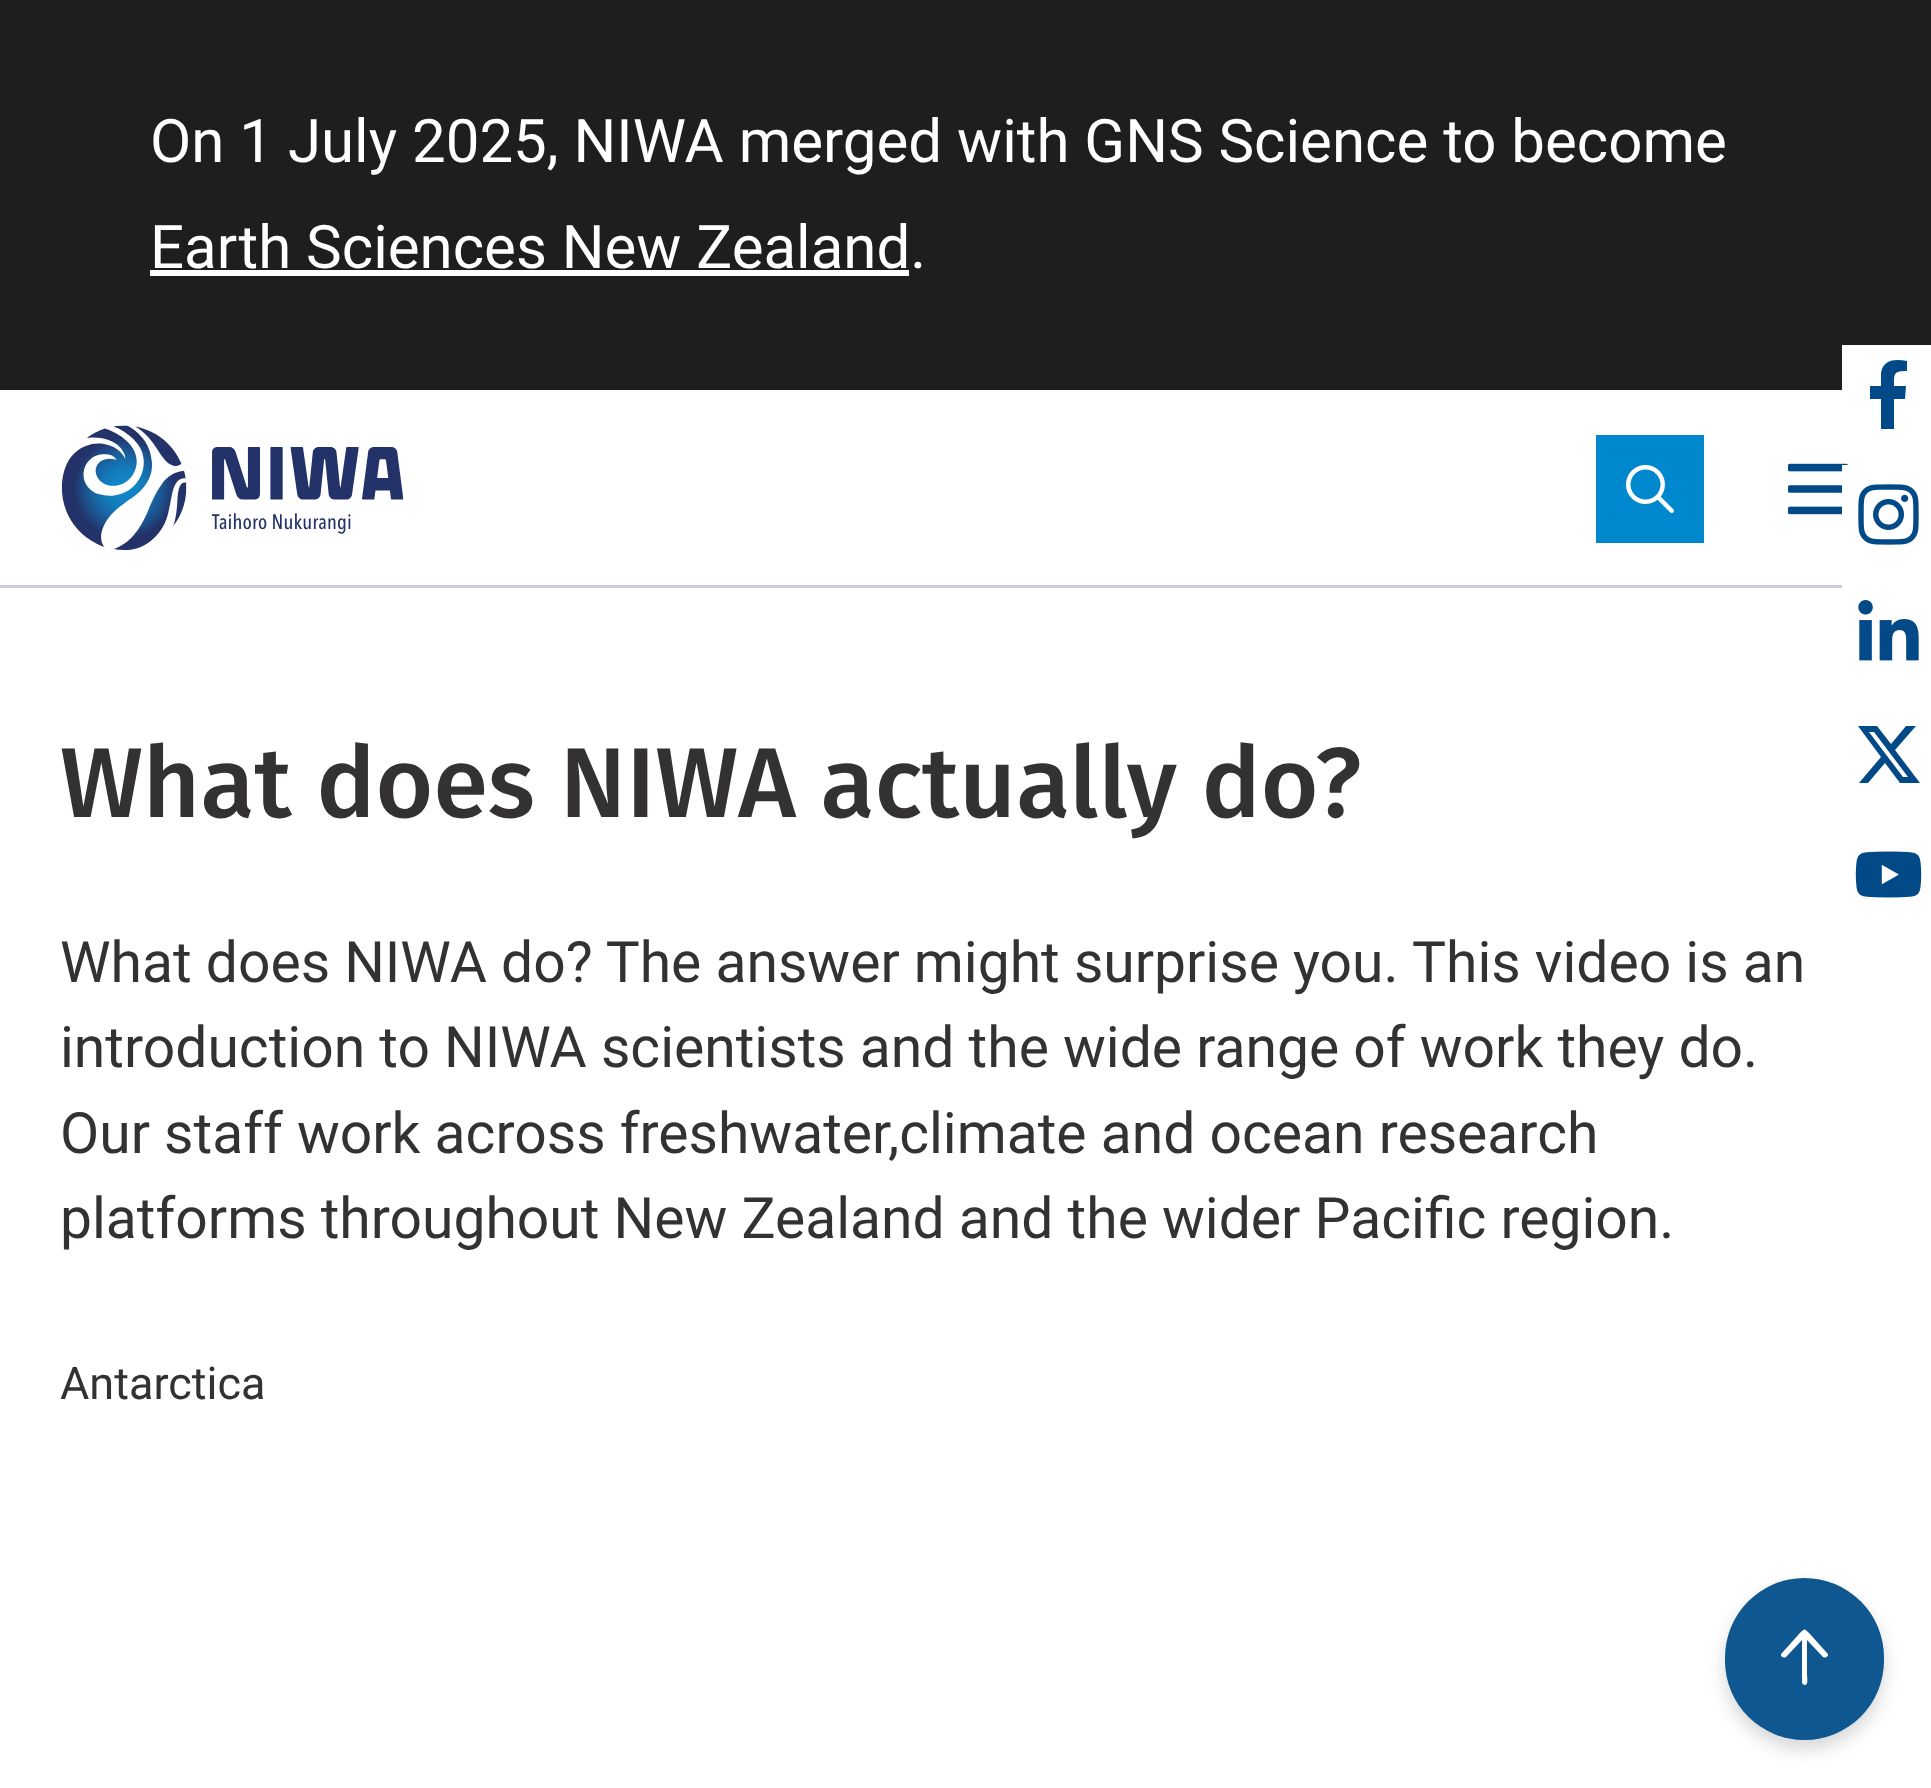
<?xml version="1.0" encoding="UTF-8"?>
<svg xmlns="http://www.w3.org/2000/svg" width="1931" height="1788">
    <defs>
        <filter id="blur1" x="-50%" y="-200%" width="200%" height="500%"><feGaussianBlur stdDeviation="9"/></filter>
    </defs>
    <rect width="100%" height="100%" fill="#FFFFFF"/>
    <rect x="0" y="0" width="1931" height="390" fill="#1E1E1E"/>
    <text font-family="Roboto" font-size="60" fill="#FFFFFF">
        <tspan x="150" y="162">On 1 July 2025, NIWA merged with GNS Science to become</tspan>
        <tspan x="150" y="268">Earth Sciences New Zealand.</tspan>
    </text>
    <rect x="150" y="270" width="759" height="6" fill="#FFFFFF"/>
    <rect x="0" y="585" width="1842" height="3" fill="#C8CDD8"/>
    <image x="61" y="425" width="343" height="125" href="img_01.png"/>
    <rect x="1596" y="435" width="108" height="108" fill="#0088CE"/>
    <image x="1626" y="465" width="48" height="48" href="img_02.png"/>
    <image x="1788" y="463" width="60" height="52" href="img_03.png"/>
    <rect x="1842" y="345" width="89" height="45" fill="#FFFFFF"/>
    <path d="M 1905 399 L 1906 386 H 1894 C 1894 374 1893 371 1907 371 V 361 C 1896 359 1883 359 1881 373 V 386 H 1870 V 399 H 1881 V 429 H 1894 V 399 Z" fill="#014A87"/>
    <rect x="1842" y="465" width="6" height="50" fill="#FFFFFF"/>
    <image x="1858" y="484" width="61" height="61" href="img_04.png"/>
    <image x="1858" y="600" width="61" height="61" href="img_05.png"/>
    <path d="M 1906 726 H 1916 L 1895 750 L 1920 783 H 1900 L 1885 763 L 1868 783 H 1859 L 1881 757 L 1858 726 H 1877 L 1891 744 Z M 1903 777 H 1908 L 1874 732 H 1869 Z" fill="#014A87"/>
    <image x="1855" y="851" width="67" height="47" href="img_06.png"/>
    <text x="60" y="817" font-family="Fira Sans" font-size="99" font-weight="500" fill="#333132">What does NIWA actually do?</text>
    <text x="60" y="982" font-family="Roboto" font-size="57" fill="#333132">What does NIWA do? The answer might surprise you.</text>
    <text x="1412" y="982" font-family="Roboto" font-size="57" fill="#333132">This video is an</text>
    <text font-family="Roboto" font-size="57" fill="#333132">
        <tspan x="60" y="1067">introduction to NIWA scientists and the wide range of work they do.</tspan>
        <tspan x="60" y="1153">Our staff work across freshwater,climate and ocean research</tspan>
        <tspan x="60" y="1238">platforms throughout New Zealand and the wider Pacific region.</tspan>
    </text>
    <text x="60" y="1399" font-family="Roboto" font-size="45" fill="#333132">Antarctica</text>
    <rect x="1725" y="1587" width="159" height="162" rx="79.5" fill="#000000" fill-opacity="0.16" filter="url(#blur1)"/>
    <rect x="1725" y="1578" width="159" height="162" rx="79.5" fill="#0E5790"/>
    <path d="M 1782 1653 L 1799 1634 C 1805 1628 1804 1628 1810 1634 L 1827 1653 C 1830 1655 1826 1659 1823 1657 L 1807 1640 V 1675 C 1807 1677 1809 1686 1804 1685 L 1802 1683 V 1640 L 1786 1657 C 1783 1659 1779 1655 1782 1653 Z" fill="#FFFFFF"/>
</svg>
